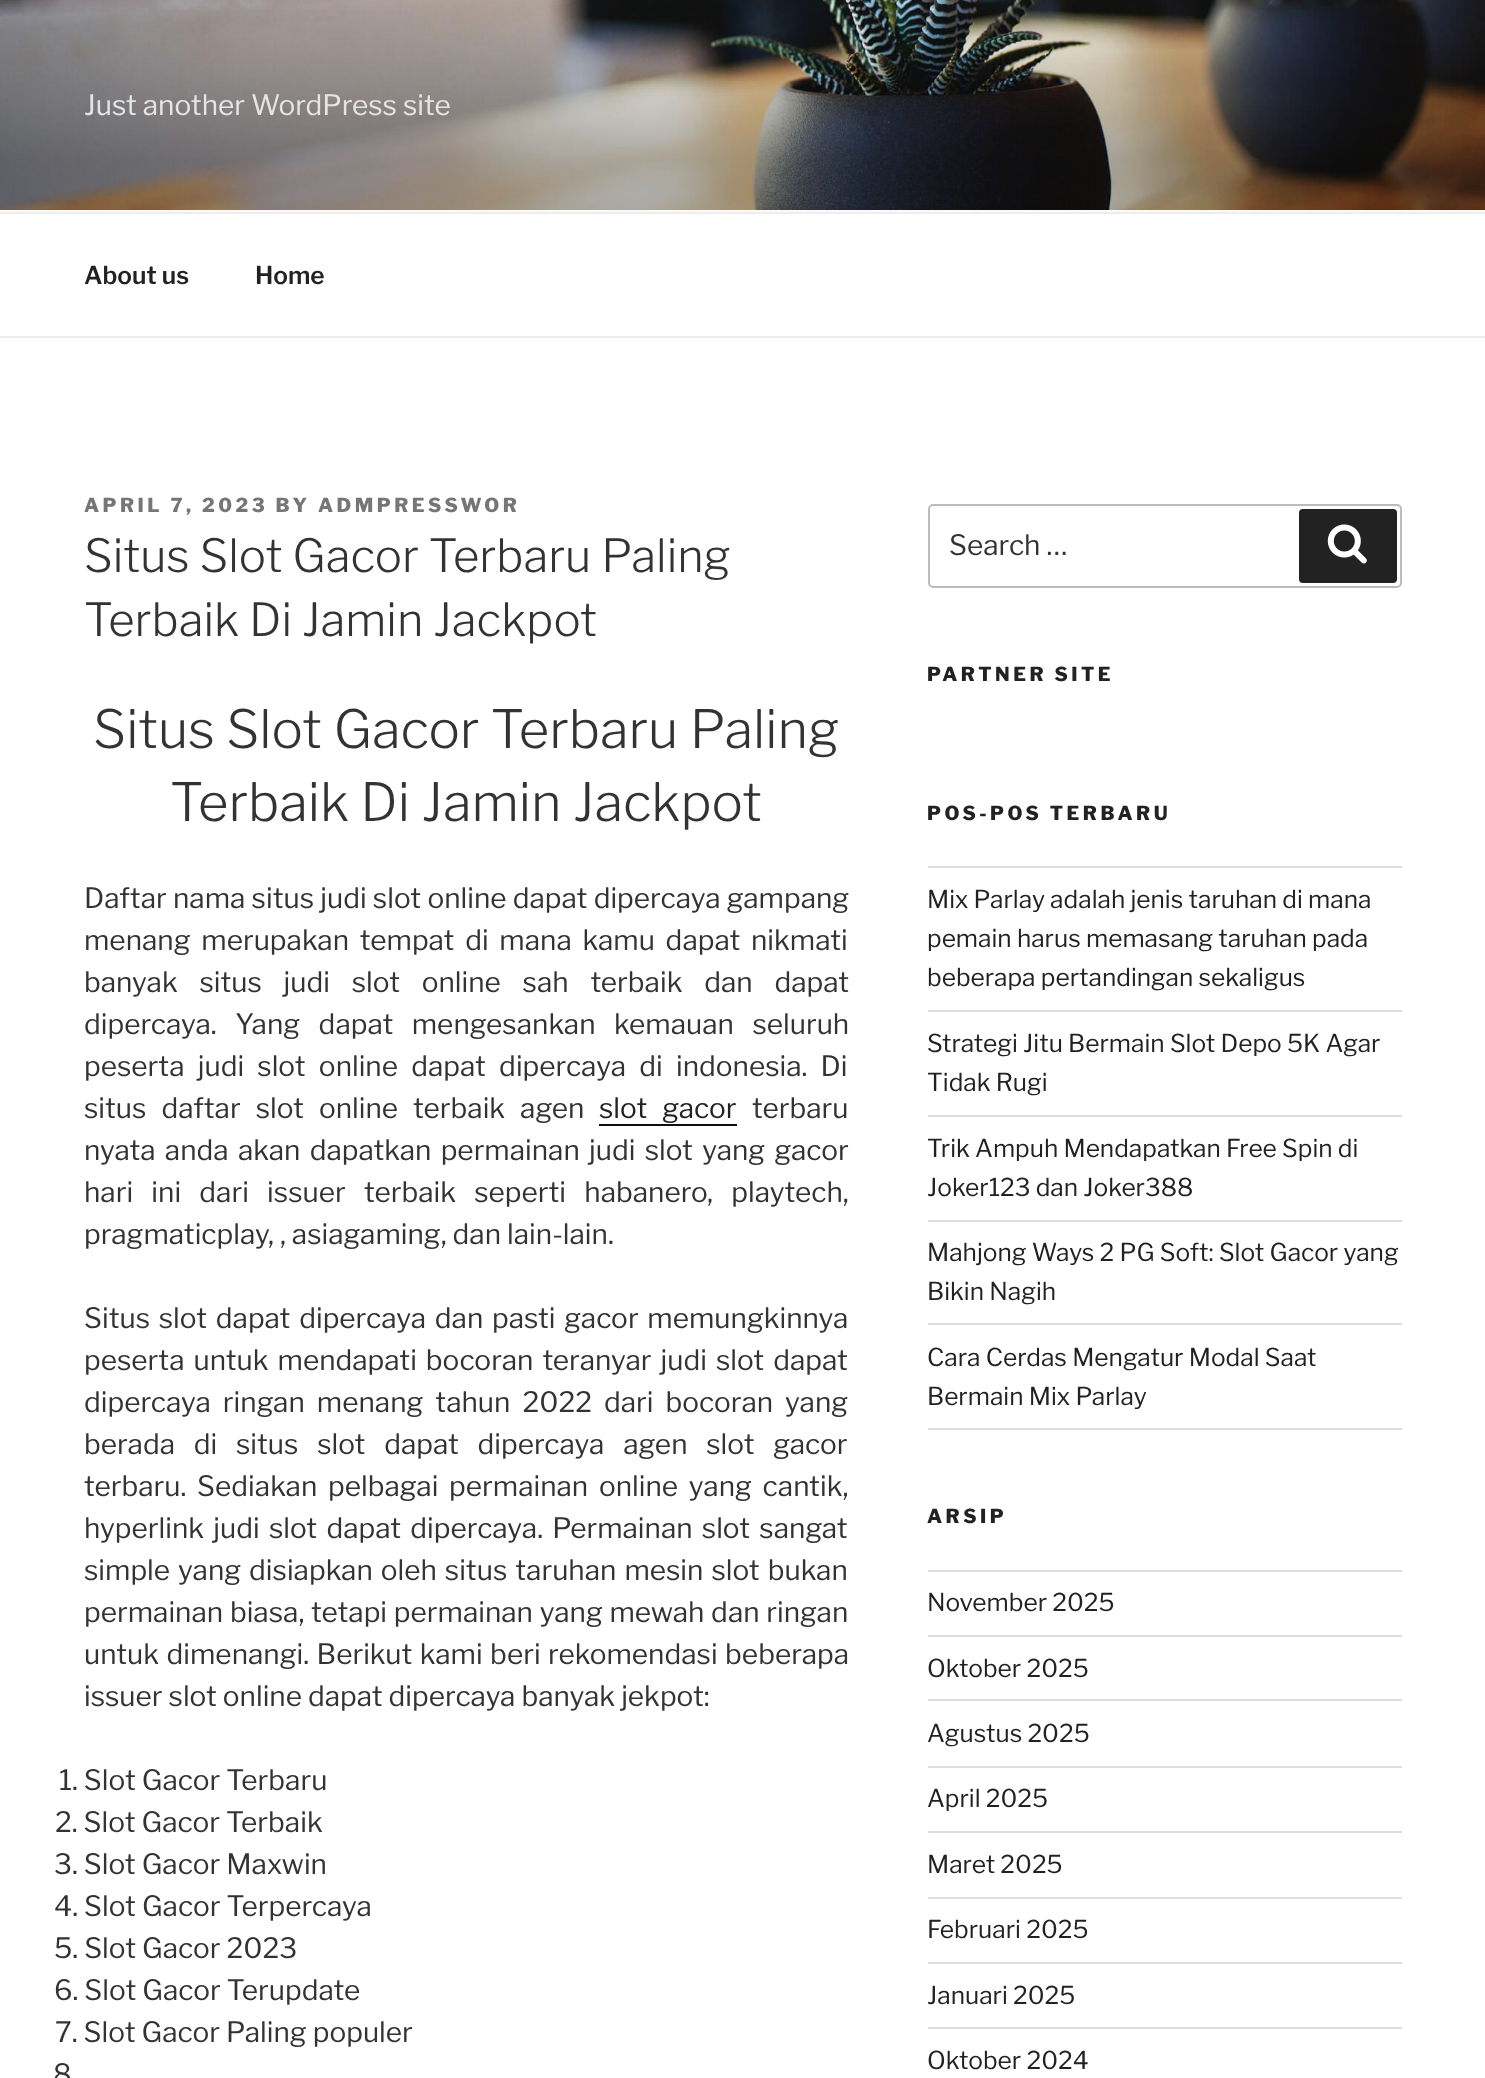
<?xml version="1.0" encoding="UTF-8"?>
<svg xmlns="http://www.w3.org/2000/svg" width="1485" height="2078">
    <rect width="100%" height="100%" fill="#FFFFFF"/>
    <rect x="0" y="210" width="1485" height="2" fill="#FAFAFA"/>
    <image x="0" y="0" width="1485" height="210" href="img_01.png"/>
    <text x="84" y="115" font-family="'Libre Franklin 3'" font-size="28" font-weight="100" fill="#E6E5E5">Just another WordPress site</text>
    <rect x="0" y="212" width="1485" height="2" fill="#EEEEEE"/>
    <rect x="0" y="336" width="1485" height="2" fill="#EEEEEE"/>
    <text x="84" y="284" font-family="'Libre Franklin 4'" font-size="24.5" font-weight="100" fill="#222222">About us</text>
    <text x="255" y="284" font-family="'Libre Franklin 4'" font-size="24.5" font-weight="100" fill="#222222">Home</text>
    <text x="84" y="512" font-family="Libre Franklin" font-size="19.25" font-weight="100" letter-spacing="3.5" fill="#767676">APRIL 7, 2023 BY ADMPRESSWOR</text>
    <text font-family="'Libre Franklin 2'" font-size="45.5" font-weight="100" fill="#333333">
        <tspan x="84" y="572">Situs Slot Gacor Terbaru Paling</tspan>
        <tspan x="84" y="636">Terbaik Di Jamin Jackpot</tspan>
    </text>
    <text x="93" y="748" font-family="'Libre Franklin 2'" font-size="52.5" font-weight="100" fill="#333333">Situs Slot Gacor Terbaru Paling</text>
    <text x="170" y="821" font-family="'Libre Franklin 2'" font-size="52.5" font-weight="100" fill="#333333">Terbaik Di Jamin Jackpot</text>
    <text font-family="'Libre Franklin 3'" font-size="28" font-weight="100" fill="#333333">
        <tspan x="84" y="908" word-spacing="0.25">Daftar nama situs judi slot online dapat dipercaya gampang</tspan>
        <tspan x="84" y="950" word-spacing="4.75">menang merupakan tempat di mana kamu dapat nikmati</tspan>
        <tspan x="84" y="992" word-spacing="15.75">banyak situs judi slot online sah terbaik dan dapat</tspan>
        <tspan x="84" y="1034" word-spacing="12.5">dipercaya. Yang dapat mengesankan kemauan seluruh</tspan>
        <tspan x="84" y="1076" word-spacing="7.25">peserta judi slot online dapat dipercaya di indonesia. Di</tspan>
        <tspan x="84" y="1118" word-spacing="9">situs daftar slot online terbaik agen</tspan>
    </text>
    <text x="599" y="1118" word-spacing="9" font-family="'Libre Franklin 3'" font-size="28" font-weight="100" fill="#222222">slot gacor</text>
    <rect x="599" y="1124" width="138" height="2" fill="#0F0F0F"/>
    <text x="752" y="1118" font-family="'Libre Franklin 3'" font-size="28" font-weight="100" fill="#333333">terbaru</text>
    <text font-family="'Libre Franklin 3'" font-size="28" font-weight="100" fill="#333333">
        <tspan x="84" y="1160" word-spacing="3.25">nyata anda akan dapatkan permainan judi slot yang gacor</tspan>
        <tspan x="84" y="1202" word-spacing="12.25">hari ini dari issuer terbaik seperti habanero, playtech,</tspan>
        <tspan x="84" y="1244">pragmaticplay, , asiagaming, dan lain-lain.</tspan>
    </text>
    <text font-family="'Libre Franklin 3'" font-size="28" font-weight="100" fill="#333333">
        <tspan x="84" y="1328" word-spacing="2.75">Situs slot dapat dipercaya dan pasti gacor memungkinnya</tspan>
        <tspan x="84" y="1370" word-spacing="3">peserta untuk mendapati bocoran teranyar judi slot dapat</tspan>
        <tspan x="84" y="1412" word-spacing="6">dipercaya ringan menang tahun 2022 dari bocoran yang</tspan>
        <tspan x="84" y="1454" word-spacing="12.75">berada di situs slot dapat dipercaya agen slot gacor</tspan>
        <tspan x="84" y="1496" word-spacing="4.75">terbaru. Sediakan pelbagai permainan online yang cantik,</tspan>
        <tspan x="84" y="1538" word-spacing="3.25">hyperlink judi slot dapat dipercaya. Permainan slot sangat</tspan>
        <tspan x="84" y="1580" word-spacing="2">simple yang disiapkan oleh situs taruhan mesin slot bukan</tspan>
        <tspan x="84" y="1622" word-spacing="0.75">permainan biasa, tetapi permainan yang mewah dan ringan</tspan>
        <tspan x="84" y="1664" word-spacing="1.5">untuk dimenangi. Berikut kami beri rekomendasi beberapa</tspan>
        <tspan x="84" y="1706">issuer slot online dapat dipercaya banyak jekpot:</tspan>
    </text>
    <text x="59" y="1790" font-family="'Libre Franklin 3'" font-size="28" font-weight="100" fill="#333333">1. Slot Gacor Terbaru</text>
    <text x="55" y="1832" font-family="'Libre Franklin 3'" font-size="28" font-weight="100" fill="#333333">2. Slot Gacor Terbaik</text>
    <text font-family="'Libre Franklin 3'" font-size="28" font-weight="100" fill="#333333">
        <tspan x="54" y="1874">3. Slot Gacor Maxwin</tspan>
        <tspan x="54" y="1916">4. Slot Gacor Terpercaya</tspan>
        <tspan x="54" y="1958">5. Slot Gacor 2023</tspan>
        <tspan x="54" y="2000">6. Slot Gacor Terupdate</tspan>
    </text>
    <text x="55" y="2042" font-family="'Libre Franklin 3'" font-size="28" font-weight="100" fill="#333333">7. Slot Gacor Paling populer</text>
    <text x="53" y="2084" font-family="'Libre Franklin 3'" font-size="28" font-weight="100" fill="#333333">8</text>
    <rect x="929" y="505" width="472" height="82" rx="4" fill="none" stroke="#BBBBBB" stroke-width="2"/>
    <text x="949" y="555" font-family="'Libre Franklin 3'" font-size="28" font-weight="100" fill="#333333">Search …</text>
    <rect x="1299" y="509" width="98" height="74" rx="4" fill="#222222"/>
    <image x="1327" y="524" width="40" height="40" href="img_02.png"/>
    <text x="927" y="681" font-family="Libre Franklin" font-size="19.25" font-weight="100" letter-spacing="3.5" fill="#222222">PARTNER SITE</text>
    <text x="927" y="820" font-family="Libre Franklin" font-size="19.25" font-weight="100" letter-spacing="3.5" fill="#222222">POS-POS TERBARU</text>
    <rect x="928" y="866" width="474" height="2" fill="#DDDDDD"/>
    <rect x="928" y="1010" width="474" height="2" fill="#DDDDDD"/>
    <text font-family="'Libre Franklin 3'" font-size="24.5" font-weight="100" fill="#222222">
        <tspan x="927" y="908">Mix Parlay adalah jenis taruhan di mana</tspan>
        <tspan x="927" y="947">pemain harus memasang taruhan pada</tspan>
        <tspan x="927" y="986">beberapa pertandingan sekaligus</tspan>
    </text>
    <rect x="928" y="1115" width="474" height="2" fill="#DDDDDD"/>
    <text font-family="'Libre Franklin 3'" font-size="24.5" font-weight="100" fill="#222222">
        <tspan x="927" y="1052">Strategi Jitu Bermain Slot Depo 5K Agar</tspan>
        <tspan x="927" y="1091">Tidak Rugi</tspan>
    </text>
    <rect x="928" y="1220" width="474" height="2" fill="#DDDDDD"/>
    <text font-family="'Libre Franklin 3'" font-size="24.5" font-weight="100" fill="#222222">
        <tspan x="927" y="1157">Trik Ampuh Mendapatkan Free Spin di</tspan>
        <tspan x="927" y="1196">Joker123 dan Joker388</tspan>
    </text>
    <rect x="928" y="1323" width="474" height="2" fill="#DDDDDD"/>
    <text font-family="'Libre Franklin 3'" font-size="24.5" font-weight="100" fill="#222222">
        <tspan x="927" y="1261">Mahjong Ways 2 PG Soft: Slot Gacor yang</tspan>
        <tspan x="927" y="1300">Bikin Nagih</tspan>
    </text>
    <rect x="928" y="1428" width="474" height="2" fill="#DDDDDD"/>
    <text font-family="'Libre Franklin 3'" font-size="24.5" font-weight="100" fill="#222222">
        <tspan x="927" y="1366">Cara Cerdas Mengatur Modal Saat</tspan>
        <tspan x="927" y="1405">Bermain Mix Parlay</tspan>
    </text>
    <text x="927" y="1523" font-family="Libre Franklin" font-size="19.25" font-weight="100" letter-spacing="3.5" fill="#222222">ARSIP</text>
    <rect x="928" y="1570" width="474" height="2" fill="#DDDDDD"/>
    <rect x="928" y="1635" width="474" height="2" fill="#DDDDDD"/>
    <text x="927" y="1611" font-family="'Libre Franklin 3'" font-size="24.5" font-weight="100" fill="#222222">November 2025</text>
    <rect x="928" y="1699" width="474" height="2" fill="#DDDDDD"/>
    <text x="927" y="1677" font-family="'Libre Franklin 3'" font-size="24.5" font-weight="100" fill="#222222">Oktober 2025</text>
    <rect x="928" y="1766" width="474" height="2" fill="#DDDDDD"/>
    <text x="927" y="1742" font-family="'Libre Franklin 3'" font-size="24.5" font-weight="100" fill="#222222">Agustus 2025</text>
    <rect x="928" y="1831" width="474" height="2" fill="#DDDDDD"/>
    <text x="927" y="1807" font-family="'Libre Franklin 3'" font-size="24.5" font-weight="100" fill="#222222">April 2025</text>
    <rect x="928" y="1897" width="474" height="2" fill="#DDDDDD"/>
    <text x="927" y="1873" font-family="'Libre Franklin 3'" font-size="24.5" font-weight="100" fill="#222222">Maret 2025</text>
    <rect x="928" y="1962" width="474" height="2" fill="#DDDDDD"/>
    <text x="927" y="1938" font-family="'Libre Franklin 3'" font-size="24.5" font-weight="100" fill="#222222">Februari 2025</text>
    <rect x="928" y="2027" width="474" height="2" fill="#DDDDDD"/>
    <text x="927" y="2004" font-family="'Libre Franklin 3'" font-size="24.5" font-weight="100" fill="#222222">Januari 2025</text>
    <text x="927" y="2069" font-family="'Libre Franklin 3'" font-size="24.5" font-weight="100" fill="#222222">Oktober 2024</text>
</svg>
